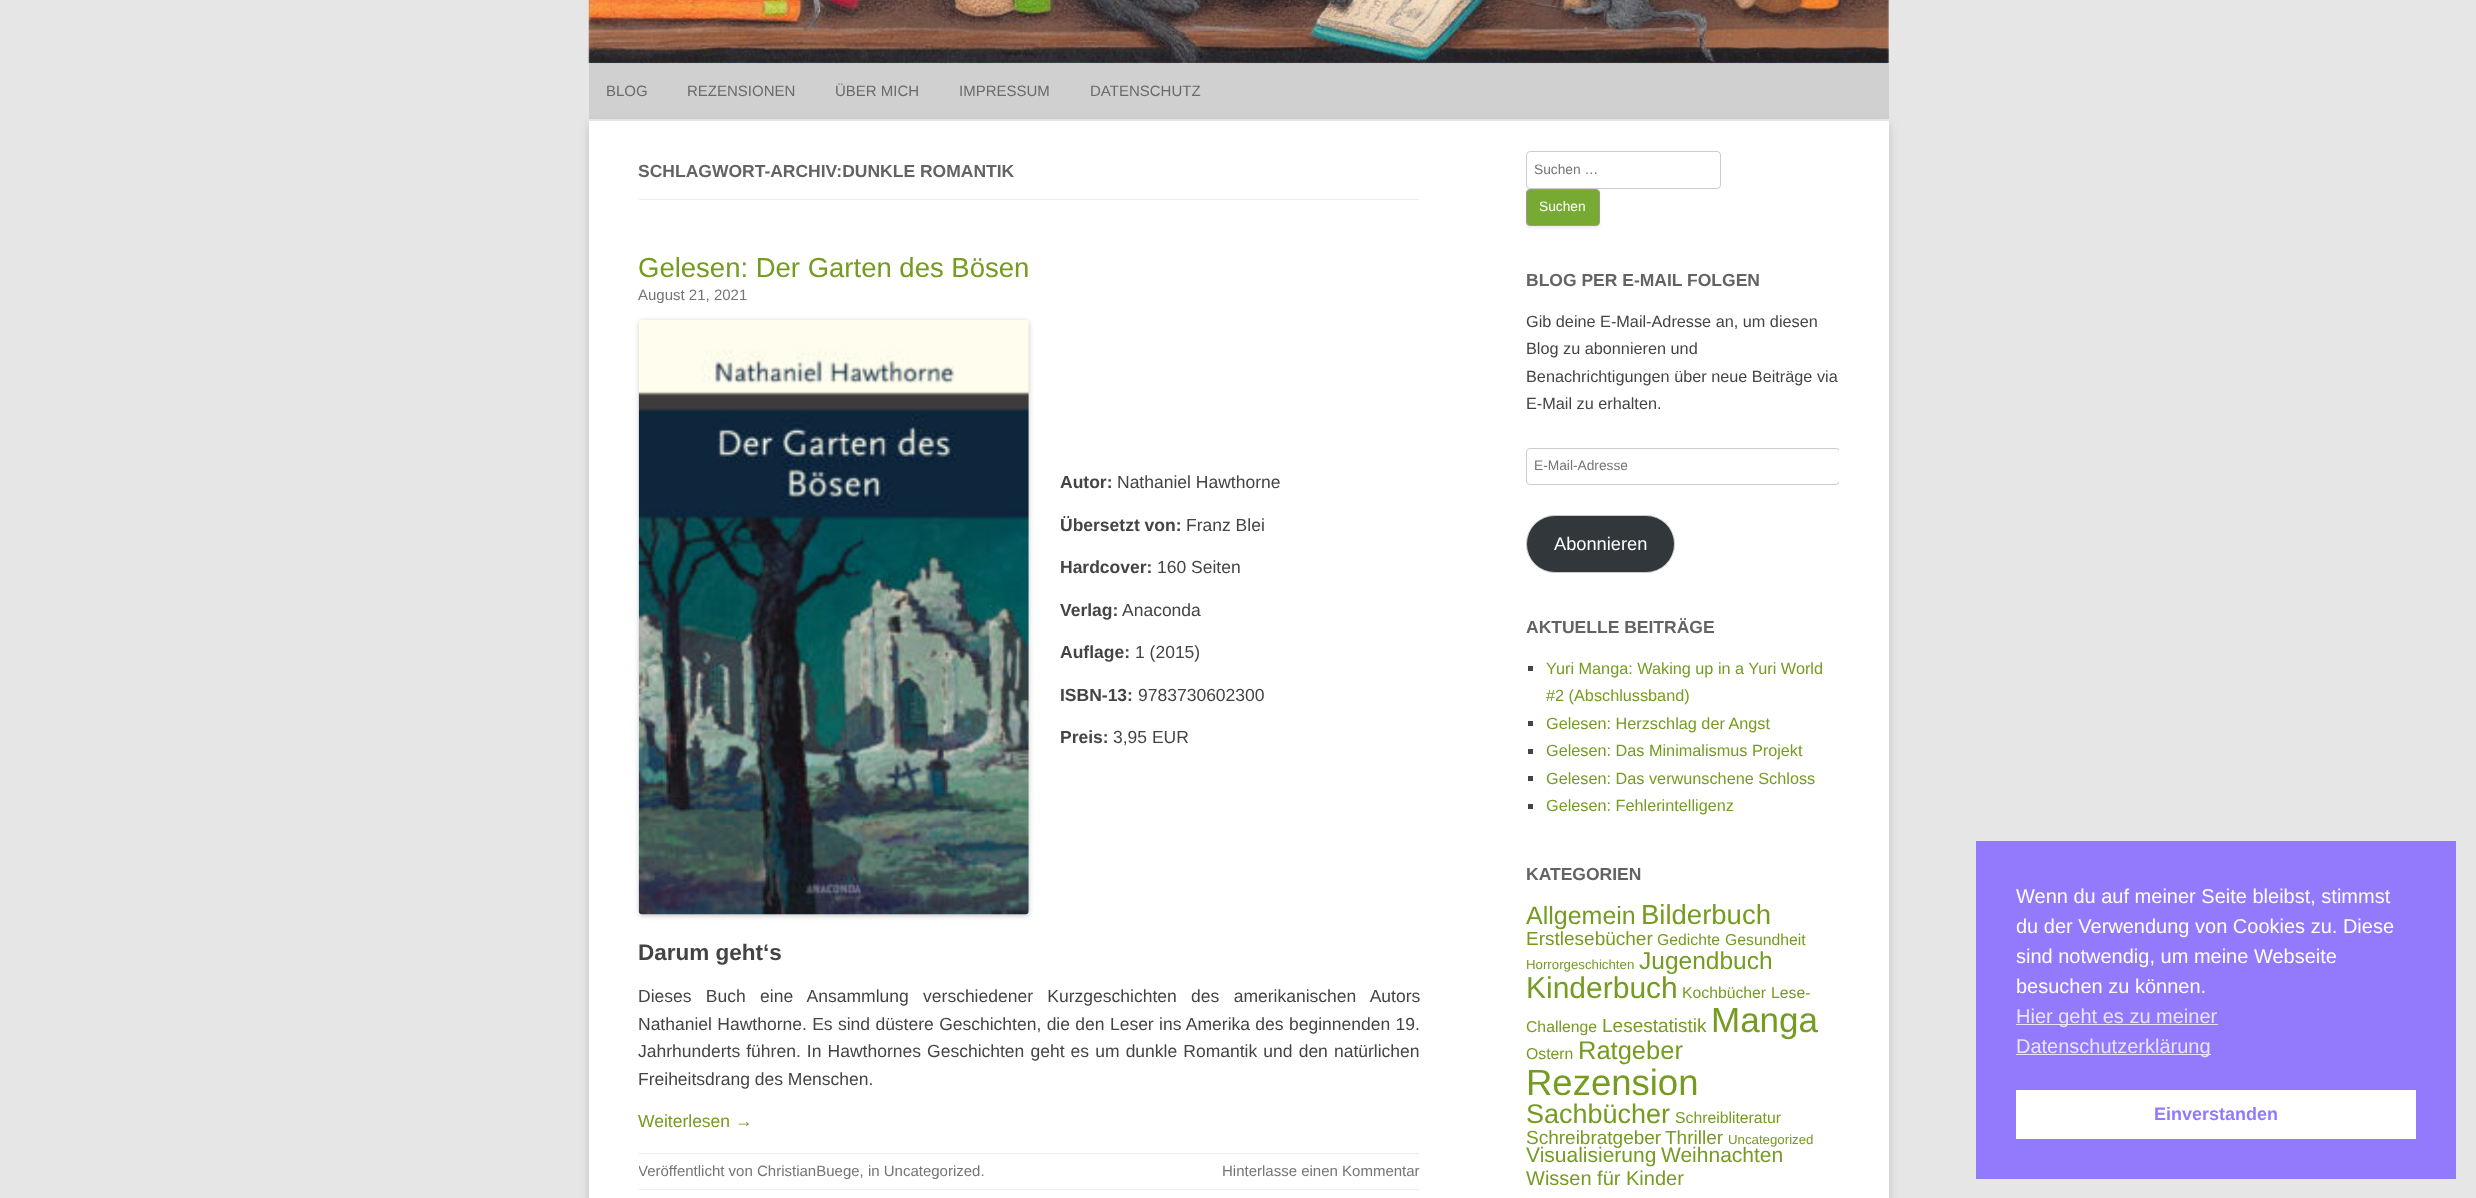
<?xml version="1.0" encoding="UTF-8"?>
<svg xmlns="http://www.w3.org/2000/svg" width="2476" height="1198">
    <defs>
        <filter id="blur1" x="-50%" y="-200%" width="200%" height="500%"><feGaussianBlur stdDeviation="4"/></filter>
        <filter id="blur2" x="-50%" y="-200%" width="200%" height="500%"><feGaussianBlur stdDeviation="2.5"/></filter>
        <clipPath id="clip1"><rect x="639" y="1154" width="780" height="35"/></clipPath>
        <filter id="blur3" x="-50%" y="-200%" width="200%" height="500%"><feGaussianBlur stdDeviation="1"/></filter>
        <clipPath id="clip2"><rect x="1526" y="151" width="313" height="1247"/></clipPath>
    </defs>
    <rect width="100%" height="100%" fill="#E6E6E6"/>
    <rect x="589" y="0" width="1300" height="64" fill="#FFFFFF"/>
    <image x="588" y="0" width="1301" height="64" href="img_01.png"/>
    <rect x="589" y="64" width="1300" height="55" fill="#D0D0D0"/>
    <rect x="589" y="119" width="1300" height="2" fill="#EDEDED"/>
    <text x="606" y="96" font-family="Liberation Sans" font-size="15" fill="#6A6A6A">BLOG</text>
    <text x="687" y="96" font-family="Liberation Sans" font-size="15" fill="#6A6A6A">REZENSIONEN</text>
    <text x="835" y="96" font-family="Liberation Sans" font-size="15" fill="#6A6A6A">ÜBER MICH</text>
    <text x="959" y="96" font-family="Liberation Sans" font-size="15" fill="#6A6A6A">IMPRESSUM</text>
    <text x="1090" y="96" font-family="Liberation Sans" font-size="15" fill="#6A6A6A">DATENSCHUTZ</text>
    <rect x="589" y="124" width="1300" height="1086" fill="#646464" fill-opacity="0.3" filter="url(#blur1)"/>
    <rect x="589" y="121" width="1300" height="1077" fill="#FFFFFF"/>
    <rect x="639" y="199" width="780" height="1" fill="#EDEDED"/>
    <text x="638" y="177" font-family="Liberation Sans" font-size="17.5" font-weight="700" fill="#636363">SCHLAGWORT-ARCHIV:DUNKLE ROMANTIK</text>
    <text x="638" y="277" font-family="Liberation Sans" font-size="27.5" fill="#759B21">Gelesen: Der Garten des Bösen</text>
    <text x="638" y="300" font-family="Liberation Sans" font-size="15" fill="#757575">August 21, 2021</text>
    <rect x="639" y="321" width="390" height="595" rx="4" fill="#000000" fill-opacity="0.2" filter="url(#blur2)"/>
    <image x="638" y="320" width="391" height="595" href="img_02.png"/>
    <text x="1060" y="488" font-family="Liberation Sans" font-size="17.5" font-weight="700" fill="#444444">Autor:</text>
    <text x="1117" y="488" font-family="Liberation Sans" font-size="17.5" fill="#444444">Nathaniel Hawthorne</text>
    <text x="1060" y="531" font-family="Liberation Sans" font-size="17.5" font-weight="700" fill="#444444">Übersetzt von:</text>
    <text x="1186" y="531" font-family="Liberation Sans" font-size="17.5" fill="#444444">Franz Blei</text>
    <text x="1060" y="573" font-family="Liberation Sans" font-size="17.5" font-weight="700" fill="#444444">Hardcover:</text>
    <text x="1157" y="573" font-family="Liberation Sans" font-size="17.5" fill="#444444">160 Seiten</text>
    <text x="1060" y="616" font-family="Liberation Sans" font-size="17.5" font-weight="700" fill="#444444">Verlag:</text>
    <text x="1122" y="616" font-family="Liberation Sans" font-size="17.5" fill="#444444">Anaconda</text>
    <text x="1060" y="658" font-family="Liberation Sans" font-size="17.5" font-weight="700" fill="#444444">Auflage:</text>
    <text x="1135" y="658" font-family="Liberation Sans" font-size="17.5" fill="#444444">1 (2015)</text>
    <text x="1060" y="701" font-family="Liberation Sans" font-size="17.5" font-weight="700" fill="#444444">ISBN-13:</text>
    <text x="1138" y="701" font-family="Liberation Sans" font-size="17.5" fill="#444444">9783730602300</text>
    <text x="1060" y="743" font-family="Liberation Sans" font-size="17.5" font-weight="700" fill="#444444">Preis:</text>
    <text x="1113" y="743" font-family="Liberation Sans" font-size="17.5" fill="#444444">3,95 EUR</text>
    <text x="638" y="960" font-family="Liberation Sans" font-size="22.5" font-weight="700" fill="#444444">Darum geht‘s</text>
    <text font-family="Liberation Sans" font-size="17.5" fill="#444444">
        <tspan x="638" y="1002" word-spacing="9.5">Dieses Buch eine Ansammlung verschiedener Kurzgeschichten des amerikanischen Autors</tspan>
        <tspan x="638" y="1030" word-spacing="0.5">Nathaniel Hawthorne. Es sind düstere Geschichten, die den Leser ins Amerika des beginnenden 19.</tspan>
        <tspan x="638" y="1057" word-spacing="1.25">Jahrhunderts führen. In Hawthornes Geschichten geht es um dunkle Romantik und den natürlichen</tspan>
        <tspan x="638" y="1085">Freiheitsdrang des Menschen.</tspan>
    </text>
    <text x="638" y="1127" font-family="Liberation Sans" font-size="17.5" fill="#759B21">Weiterlesen →</text>
    <rect x="639" y="1153" width="780" height="1" fill="#EDEDED"/>
    <rect x="639" y="1189" width="780" height="1" fill="#EDEDED"/>
    <g clip-path="url(#clip1)">
        <text x="638" y="1176" font-family="Liberation Sans" font-size="15" fill="#757575">Veröffentlicht von</text>
    </g>
    <text x="757" y="1176" font-family="Liberation Sans" font-size="15" fill="#757575">ChristianBuege, in Uncategorized.</text>
    <text x="1222" y="1176" font-family="Liberation Sans" font-size="15" fill="#757575">Hinterlasse einen Kommentar</text>
    <rect x="1526.5" y="151.5" width="194" height="37" rx="3.5" fill="none" stroke="#CCCCCC"/>
    <text x="1534" y="174" font-family="Liberation Sans" font-size="13.75" fill="#757575">Suchen …</text>
    <rect x="1526" y="190" width="74" height="38" rx="4" fill="#404040" fill-opacity="0.1" filter="url(#blur3)"/>
    <rect x="1526.5" y="189.5" width="73" height="36" rx="3.5" fill="#77AA33" stroke="#999999"/>
    <text x="1539" y="211" font-family="Liberation Sans" font-size="13.75" fill="#FFFFFF">Suchen</text>
    <text x="1526" y="286" font-family="Liberation Sans" font-size="17.5" font-weight="700" fill="#636363">BLOG PER E-MAIL FOLGEN</text>
    <text font-family="Liberation Sans" font-size="16.25" fill="#444444">
        <tspan x="1526" y="327">Gib deine E-Mail-Adresse an, um diesen</tspan>
        <tspan x="1526" y="354">Blog zu abonnieren und</tspan>
        <tspan x="1526" y="382">Benachrichtigungen über neue Beiträge via</tspan>
        <tspan x="1526" y="409">E-Mail zu erhalten.</tspan>
    </text>
    <g clip-path="url(#clip2)">
        <rect x="1526.5" y="448.5" width="313" height="36" rx="3.5" fill="none" stroke="#CCCCCC"/>
    </g>
    <text x="1534" y="470" font-family="Liberation Sans" font-size="13.75" fill="#757575">E-Mail-Adresse</text>
    <rect x="1526.5" y="515.5" width="148" height="57" rx="28.5" fill="#32373C" stroke="#CCCCCC"/>
    <text x="1554" y="550" font-family="Liberation Sans" font-size="18.25" fill="#FFFFFF">Abonnieren</text>
    <text x="1526" y="633" font-family="Liberation Sans" font-size="17.5" font-weight="700" fill="#636363">AKTUELLE BEITRÄGE</text>
    <rect x="1528" y="666" width="5" height="5" fill="#444444"/>
    <text font-family="Liberation Sans" font-size="16.25" fill="#759B21">
        <tspan x="1546" y="674">Yuri Manga: Waking up in a Yuri World</tspan>
        <tspan x="1546" y="701">#2 (Abschlussband)</tspan>
    </text>
    <rect x="1528" y="721" width="5" height="5" fill="#444444"/>
    <text x="1546" y="729" font-family="Liberation Sans" font-size="16.25" fill="#759B21">Gelesen: Herzschlag der Angst</text>
    <rect x="1528" y="749" width="5" height="5" fill="#444444"/>
    <text x="1546" y="756" font-family="Liberation Sans" font-size="16.25" fill="#759B21">Gelesen: Das Minimalismus Projekt</text>
    <rect x="1528" y="776" width="5" height="5" fill="#444444"/>
    <text x="1546" y="784" font-family="Liberation Sans" font-size="16.25" fill="#759B21">Gelesen: Das verwunschene Schloss</text>
    <rect x="1528" y="804" width="5" height="5" fill="#444444"/>
    <text x="1546" y="811" font-family="Liberation Sans" font-size="16.25" fill="#759B21">Gelesen: Fehlerintelligenz</text>
    <text x="1526" y="880" font-family="Liberation Sans" font-size="17.5" font-weight="700" fill="#636363">KATEGORIEN</text>
    <text x="1526" y="924" font-family="Liberation Sans" font-size="25" fill="#759B21">Allgemein</text>
    <text x="1641" y="924" font-family="Liberation Sans" font-size="27.5" fill="#759B21">Bilderbuch</text>
    <text x="1526" y="945" font-family="Liberation Sans" font-size="19" fill="#759B21">Erstlesebücher</text>
    <text x="1657" y="945" font-family="Liberation Sans" font-size="15.75" fill="#759B21">Gedichte</text>
    <text x="1725" y="945" font-family="Liberation Sans" font-size="15.75" fill="#759B21">Gesundheit</text>
    <text x="1526" y="969" font-family="Liberation Sans" font-size="13.25" fill="#759B21">Horrorgeschichten</text>
    <text x="1639" y="969" font-family="Liberation Sans" font-size="24.5" fill="#759B21">Jugendbuch</text>
    <text x="1526" y="998" font-family="Liberation Sans" font-size="30" fill="#759B21">Kinderbuch</text>
    <text x="1682" y="998" font-family="Liberation Sans" font-size="15.75" fill="#759B21">Kochbücher</text>
    <text x="1771" y="998" font-family="Liberation Sans" font-size="15.75" fill="#759B21">Lese-</text>
    <text x="1526" y="1032" font-family="Liberation Sans" font-size="15.75" fill="#759B21">Challenge</text>
    <text x="1602" y="1032" font-family="Liberation Sans" font-size="19" fill="#759B21">Lesestatistik</text>
    <text x="1711" y="1032" font-family="Liberation Sans" font-size="35" fill="#759B21">Manga</text>
    <text x="1526" y="1059" font-family="Liberation Sans" font-size="15.75" fill="#759B21">Ostern</text>
    <text x="1578" y="1059" font-family="Liberation Sans" font-size="25.5" fill="#759B21">Ratgeber</text>
    <text x="1526" y="1095" font-family="Liberation Sans" font-size="36.5" fill="#759B21">Rezension</text>
    <text x="1526" y="1123" font-family="Liberation Sans" font-size="27" fill="#759B21">Sachbücher</text>
    <text x="1675" y="1123" font-family="Liberation Sans" font-size="15.75" fill="#759B21">Schreibliteratur</text>
    <text x="1526" y="1144" font-family="Liberation Sans" font-size="19" fill="#759B21">Schreibratgeber</text>
    <text x="1665" y="1144" font-family="Liberation Sans" font-size="19" fill="#759B21">Thriller</text>
    <text x="1728" y="1144" font-family="Liberation Sans" font-size="13.25" fill="#759B21">Uncategorized</text>
    <text x="1526" y="1162" font-family="Liberation Sans" font-size="21" fill="#759B21">Visualisierung</text>
    <text x="1661" y="1162" font-family="Liberation Sans" font-size="21" fill="#759B21">Weihnachten</text>
    <text x="1526" y="1185" font-family="Liberation Sans" font-size="20" fill="#759B21">Wissen für Kinder</text>
    <rect x="1976" y="841" width="480" height="338" fill="#937AFC"/>
    <text font-family="Liberation Sans" font-size="20" fill="#FFFFFF">
        <tspan x="2016" y="903">Wenn du auf meiner Seite bleibst, stimmst</tspan>
        <tspan x="2016" y="933">du der Verwendung von Cookies zu. Diese</tspan>
        <tspan x="2016" y="963">sind notwendig, um meine Webseite</tspan>
        <tspan x="2016" y="993">besuchen zu können.</tspan>
    </text>
    <rect x="2016" y="1024" width="202" height="1" fill="#E9E4FE"/>
    <text x="2016" y="1023" font-family="Liberation Sans" font-size="20" fill="#E9E4FE">Hier geht es zu meiner</text>
    <rect x="2016" y="1054" width="195" height="1" fill="#E9E4FE"/>
    <text x="2016" y="1053" font-family="Liberation Sans" font-size="20" fill="#E9E4FE">Datenschutzerklärung</text>
    <rect x="2016" y="1090" width="400" height="49" fill="#FFFFFF"/>
    <text x="2154" y="1120" font-family="Liberation Sans" font-size="18" font-weight="700" fill="#937AFC">Einverstanden</text>
</svg>
